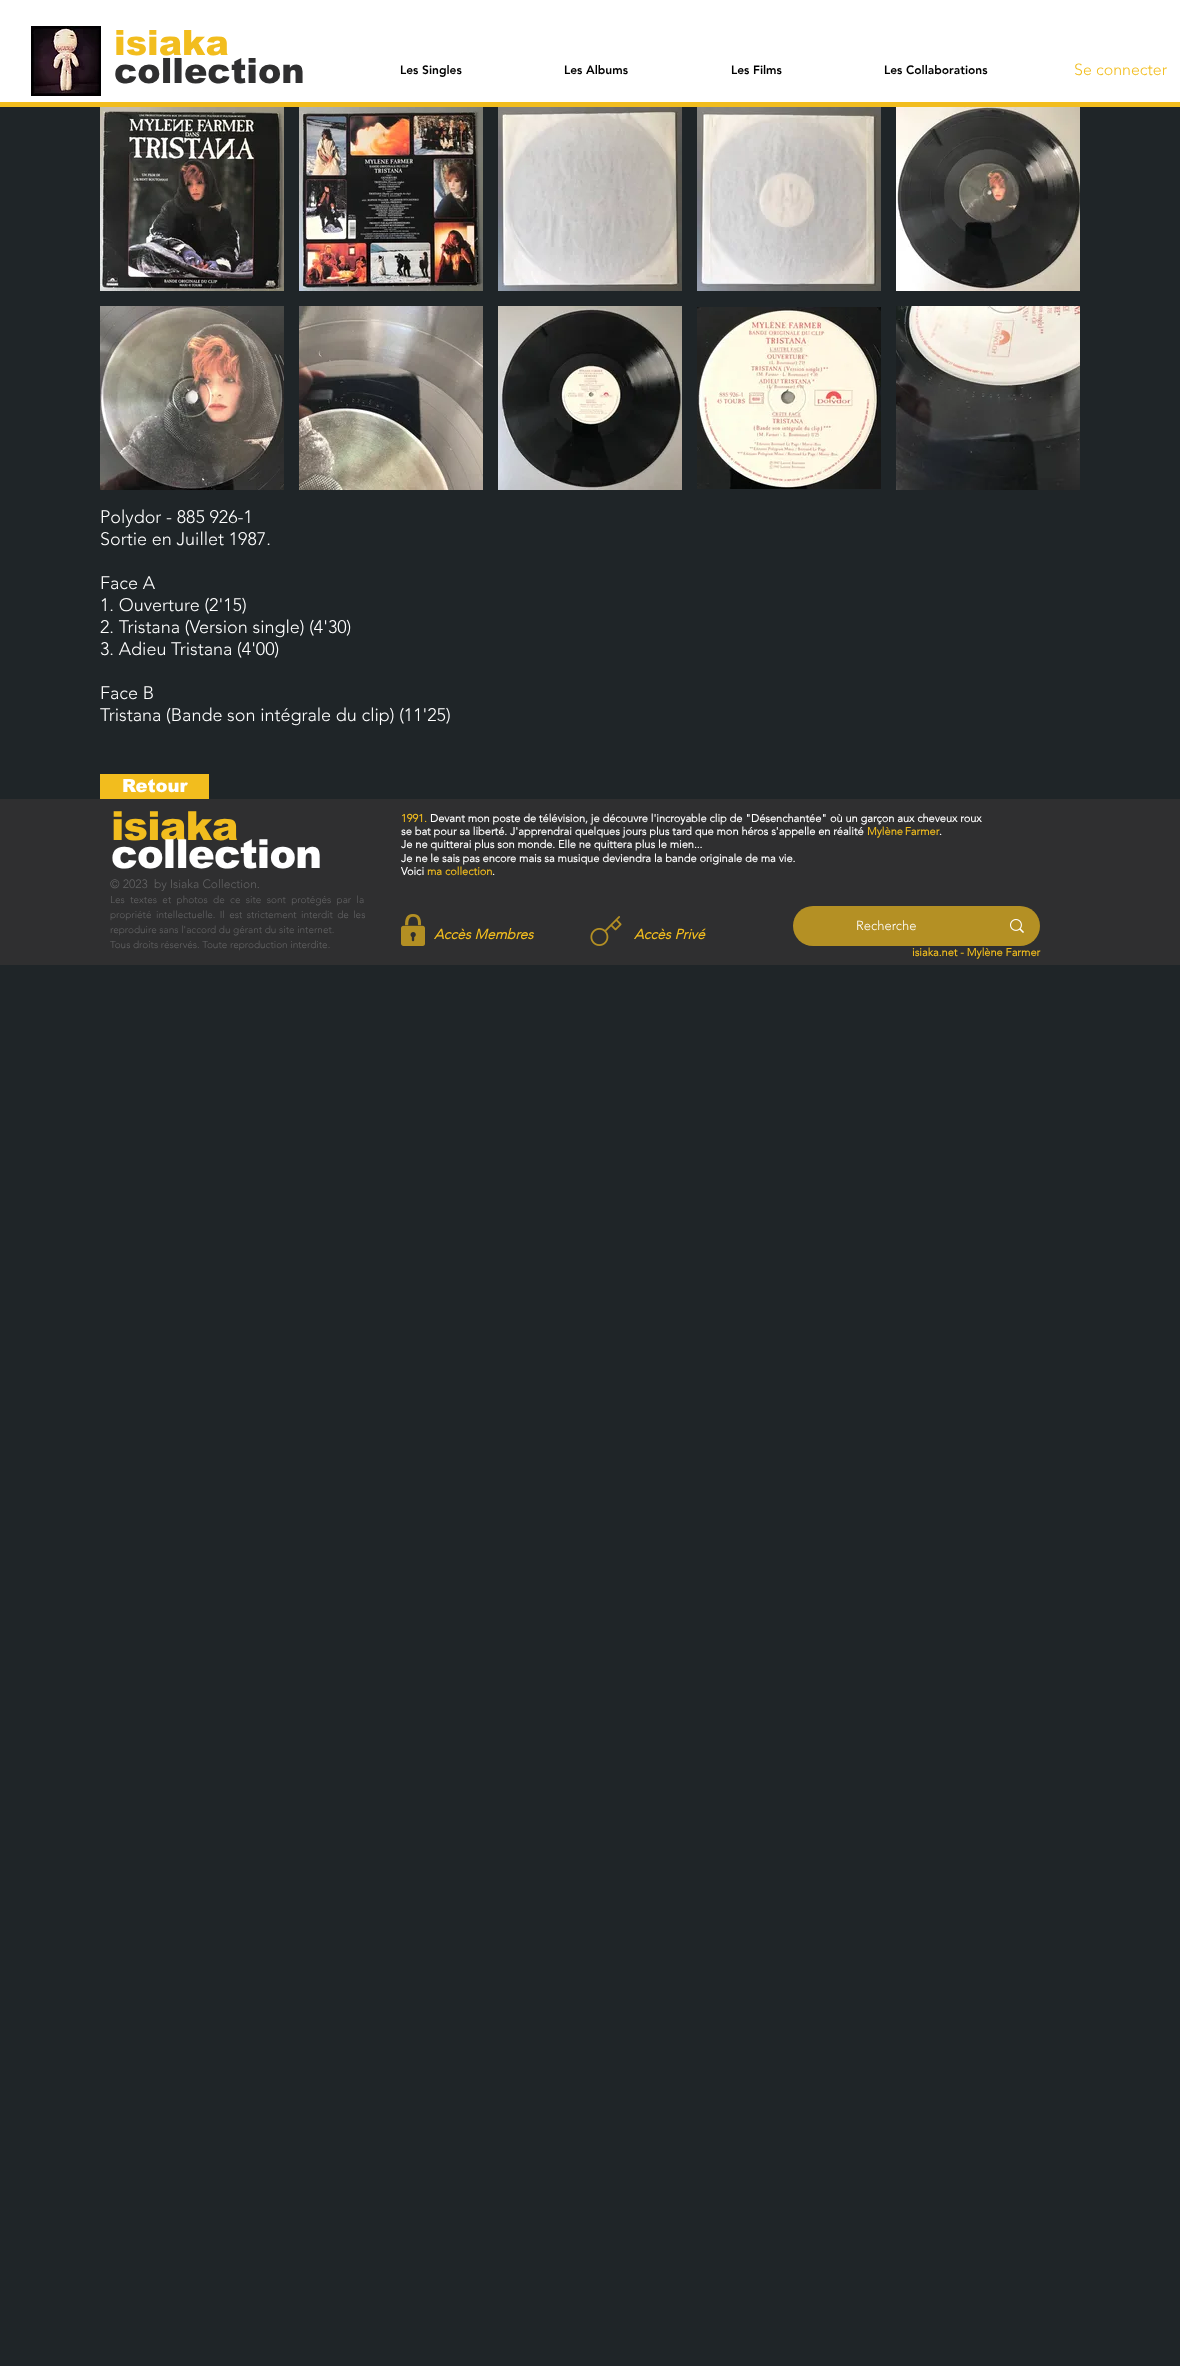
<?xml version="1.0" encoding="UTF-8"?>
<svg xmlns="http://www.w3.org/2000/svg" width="1180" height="2366">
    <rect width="100%" height="100%" fill="#1F2528"/>
    <rect x="0" y="0" width="1180" height="102" fill="#FFFFFF"/>
    <rect x="0" y="102" width="1180" height="5" fill="#F2BD1E"/>
    <image x="31" y="26" width="70" height="70" href="img_01.png"/>
    <text x="114" y="55" font-family="arial" font-size="35" font-weight="900" fill="#F2BD1E">isiaka</text>
    <text x="114" y="83" font-family="arial" font-size="35" font-weight="900" fill="#2F2F30">collection</text>
    <text x="400" y="74" font-family="'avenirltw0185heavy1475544'" font-size="12" font-weight="900" fill="#000000">Les Singles</text>
    <text x="564" y="74" font-family="'avenirltw0185heavy1475544'" font-size="12" font-weight="900" fill="#000000">Les Albums</text>
    <text x="731" y="74" font-family="'avenirltw0185heavy1475544'" font-size="12" font-weight="900" fill="#000000">Les Films</text>
    <text x="884" y="74" font-family="'avenirltw0185heavy1475544'" font-size="12" font-weight="900" fill="#000000">Les Collaborations</text>
    <text x="1074" y="75" font-family="'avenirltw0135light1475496'" font-size="16" font-weight="300" fill="#F2BD1E">Se connecter</text>
    <image x="100" y="107" width="184" height="184" href="img_02.png"/>
    <image x="299" y="107" width="184" height="184" href="img_03.png"/>
    <image x="498" y="107" width="184" height="184" href="img_04.png"/>
    <image x="697" y="107" width="184" height="184" href="img_05.png"/>
    <image x="896" y="107" width="184" height="184" href="img_06.png"/>
    <image x="100" y="306" width="184" height="184" href="img_07.png"/>
    <image x="299" y="306" width="184" height="184" href="img_08.png"/>
    <image x="498" y="306" width="184" height="184" href="img_09.png"/>
    <image x="697" y="307" width="184" height="182" href="img_10.png"/>
    <image x="896" y="306" width="184" height="184" href="img_11.png"/>
    <text font-family="'avenirltw0135light1475496'" font-size="18" font-weight="300" fill="#FFFFFF">
        <tspan x="100" y="523">Polydor - 885 926-1</tspan>
        <tspan x="100" y="545">Sortie en Juillet 1987.</tspan>
    </text>
    <text font-family="'avenirltw0135light1475496'" font-size="18" font-weight="300" fill="#FFFFFF">
        <tspan x="100" y="589">Face A</tspan>
        <tspan x="100" y="611">1. Ouverture (2'15)</tspan>
        <tspan x="100" y="633">2. Tristana (Version single) (4'30)</tspan>
        <tspan x="100" y="655">3. Adieu Tristana (4'00)</tspan>
    </text>
    <text font-family="'avenirltw0135light1475496'" font-size="18" font-weight="300" fill="#FFFFFF">
        <tspan x="100" y="699">Face B</tspan>
        <tspan x="100" y="721">Tristana (Bande son intégrale du clip) (11'25)</tspan>
    </text>
    <rect x="100" y="774" width="109" height="25" fill="#F2BD1E"/>
    <text x="122" y="792" font-family="arial" font-size="18" font-weight="900" fill="#FFFFFF">Retour</text>
    <rect x="0" y="799" width="1180" height="166" fill="#2F2F30"/>
    <text x="111" y="840" font-family="arial" font-size="40" font-weight="900" letter-spacing="-0.75" fill="#F2BD1E">isiaka</text>
    <text x="111" y="868" font-family="arial" font-size="40" font-weight="900" letter-spacing="-0.75" fill="#FFFFFF">collection</text>
    <text x="401" y="822" font-family="'avenirltw0135light1475496'" font-size="11" font-weight="700" fill="#F2BD1E">1991.</text>
    <text x="430" y="822" font-family="'avenirltw0135light1475496'" font-size="11" font-weight="700" fill="#FFFFFF">Devant mon poste de télévision, je découvre l'incroyable clip de "Désenchantée" où un garçon aux cheveux roux</text>
    <text x="401" y="835" font-family="'avenirltw0135light1475496'" font-size="11" font-weight="700" fill="#FFFFFF">se bat pour sa liberté. J'apprendrai quelques jours plus tard que mon héros s'appelle en réalité</text>
    <text x="867" y="835" word-spacing="-1" font-family="'avenirltw0135light1475496'" font-size="11" font-weight="700" fill="#F2BD1E">Mylène Farmer</text>
    <text x="939" y="835" font-family="'avenirltw0135light1475496'" font-size="11" font-weight="700" fill="#FFFFFF">.</text>
    <text font-family="'avenirltw0135light1475496'" font-size="11" font-weight="700" fill="#FFFFFF">
        <tspan x="401" y="848">Je ne quitterai plus son monde. Elle ne quittera plus le mien...</tspan>
        <tspan x="401" y="862">Je ne le sais pas encore mais sa musique deviendra la bande originale de ma vie.</tspan>
        <tspan x="401" y="875">Voici</tspan>
    </text>
    <text x="427" y="875" font-family="'avenirltw0135light1475496'" font-size="11" font-weight="700" fill="#F2BD1E">ma collection</text>
    <text x="492" y="875" font-family="'avenirltw0135light1475496'" font-size="11" font-weight="700" fill="#FFFFFF">.</text>
    <text x="110" y="888" font-family="'avenirltw0135light1475496'" font-size="12" font-weight="300" fill="#636364" xml:space="preserve">© 2023  by Isiaka Collection.</text>
    <text font-family="'avenirltw0135light1475496'" font-size="10" font-weight="300" fill="#636364">
        <tspan x="110" y="903" word-spacing="2.75">Les textes et photos de ce site sont protégés par la</tspan>
        <tspan x="110" y="918">propriété</tspan>
    </text>
    <text x="156" y="918" word-spacing="1.75" font-family="'avenirltw0135light1475496'" font-size="10" font-weight="300" fill="#636364">intellectuelle. Il est strictement interdit de les</text>
    <text font-family="'avenirltw0135light1475496'" font-size="10" font-weight="300" fill="#636364">
        <tspan x="110" y="933">reproduire sans l'accord du gérant du site internet.</tspan>
        <tspan x="110" y="948">Tous droits réservés. Toute</tspan>
    </text>
    <text x="230" y="948" font-family="'avenirltw0135light1475496'" font-size="10" font-weight="300" fill="#636364">reproduction interdite.</text>
    <image x="401" y="914" width="24" height="32" href="img_12.png"/>
    <image x="590" y="916" width="32" height="30" href="img_13.png"/>
    <rect x="793" y="906" width="247" height="40" rx="20" fill="#B49024"/>
    <text x="856" y="930" font-family="'avenirltw0135light1475496'" font-size="13" font-weight="300" fill="#FFFFFF">Recherche</text>
    <image x="1010" y="919" width="14" height="14" href="img_14.png"/>
    <text x="434" y="939" font-family="'avenirltw0135light1475496'" font-size="14" font-weight="700" font-style="italic" fill="#F2BD1E">Accès Membres</text>
    <text x="634" y="939" font-family="'avenirltw0135light1475496'" font-size="14" font-weight="700" font-style="italic" fill="#F2BD1E">Accès Privé</text>
    <text x="912" y="956" font-family="'avenirltw0135light1475496'" font-size="11" font-weight="700" fill="#F2BD1E">isiaka.net - Mylène Farmer</text>
</svg>
